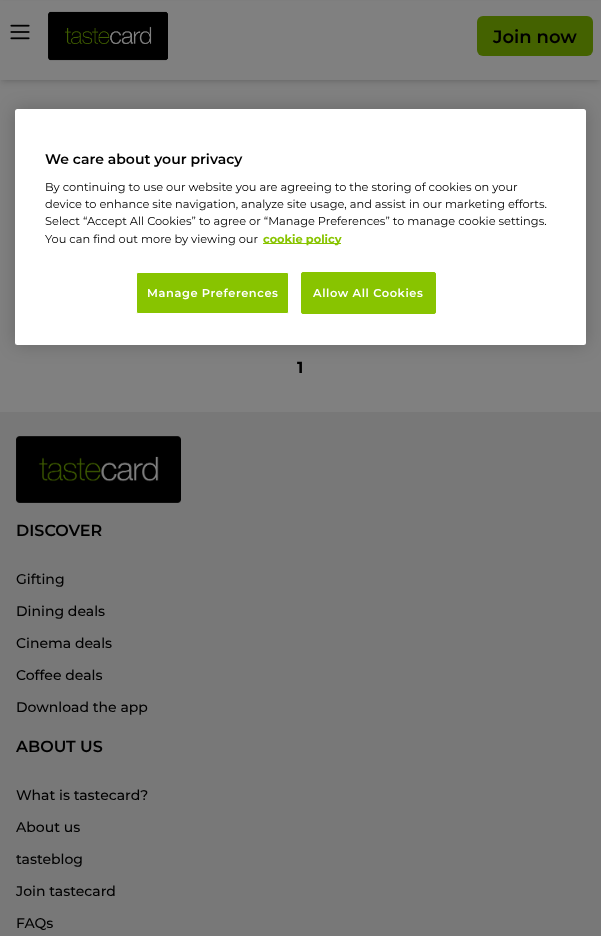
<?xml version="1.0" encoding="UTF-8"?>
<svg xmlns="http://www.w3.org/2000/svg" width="601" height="936">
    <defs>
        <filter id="blur1" x="-50%" y="-200%" width="200%" height="500%"><feGaussianBlur stdDeviation="2"/></filter>
        <filter id="blur2" x="-50%" y="-200%" width="200%" height="500%"><feGaussianBlur stdDeviation="3"/></filter>
        <filter id="blur3" x="-50%" y="-200%" width="200%" height="500%"><feGaussianBlur stdDeviation="9"/></filter>
    </defs>
    <rect width="100%" height="100%" fill="#808080"/>
    <rect x="2" y="4" width="597" height="76" fill="#000000" fill-opacity="0.1" filter="url(#blur1)"/>
    <rect x="1" y="5" width="599" height="78" fill="#000000" fill-opacity="0.1" filter="url(#blur2)"/>
    <rect x="0" y="1" width="601" height="79" fill="#808080"/>
    <image x="10" y="24" width="20" height="16" href="img_01.png"/>
    <image x="48" y="11" width="120" height="50" href="img_02.png"/>
    <rect x="477" y="16" width="116" height="40" rx="6" fill="#446200"/>
    <text x="493" y="43" font-family="Montserrat" font-size="18" font-weight="600" fill="#000000">Join now</text>
    <rect x="15" y="109" width="571" height="236" rx="2.5" fill="#000000" fill-opacity="0.2" filter="url(#blur3)"/>
    <rect x="15" y="109" width="571" height="236" rx="2.5" fill="#FFFFFF"/>
    <text x="45" y="164" font-family="Montserrat" font-size="14" font-weight="600" fill="#000000">We care about your privacy</text>
    <text font-family="Montserrat" font-size="11.4" fill="#000000">
        <tspan x="45" y="191">By continuing to use our website you are agreeing to the storing of cookies on your</tspan>
        <tspan x="45" y="208">device to enhance site navigation, analyze site usage, and assist in our marketing efforts.</tspan>
        <tspan x="45" y="225">Select “Accept All Cookies” to agree or “Manage Preferences” to manage cookie settings.</tspan>
        <tspan x="45" y="243">You can find out more by viewing our</tspan>
    </text>
    <rect x="263" y="243" width="78" height="1" fill="#88C400"/>
    <text x="263" y="243" font-family="Montserrat" font-size="11.4" font-weight="700" fill="#88C400">cookie policy</text>
    <rect x="136.5" y="272.5" width="152" height="41" rx="1.5" fill="#88C400" stroke="#FFFFFF"/>
    <text x="147" y="297" font-family="Montserrat" font-size="11.4" font-weight="600" letter-spacing="0.6" fill="#FFFFFF">Manage Preferences</text>
    <rect x="301.5" y="272.5" width="134" height="41" rx="1.5" fill="#88C400" stroke="#88C400"/>
    <text x="313" y="297" font-family="Montserrat" font-size="11.4" font-weight="600" letter-spacing="0.6" fill="#FFFFFF">Allow All Cookies</text>
    <text x="297" y="373" font-family="Montserrat" font-size="16" font-weight="700" fill="#000000">1</text>
    <rect x="0" y="412" width="601" height="524" fill="#787878"/>
    <image x="16" y="436" width="165" height="67" href="img_03.png"/>
    <text x="16" y="536" font-family="Montserrat" font-size="16" font-weight="600" fill="#000000">DISCOVER</text>
    <text x="16" y="584" font-family="Montserrat" font-size="14" font-weight="500" fill="#000000">Gifting</text>
    <text x="16" y="616" font-family="Montserrat" font-size="14" font-weight="500" fill="#000000">Dining deals</text>
    <text x="16" y="648" font-family="Montserrat" font-size="14" font-weight="500" fill="#000000">Cinema deals</text>
    <text x="16" y="680" font-family="Montserrat" font-size="14" font-weight="500" fill="#000000">Coffee deals</text>
    <text x="16" y="712" font-family="Montserrat" font-size="14" font-weight="500" fill="#000000">Download the app</text>
    <text x="16" y="752" font-family="Montserrat" font-size="16" font-weight="600" fill="#000000">ABOUT US</text>
    <text x="16" y="800" font-family="Montserrat" font-size="14" font-weight="500" fill="#000000">What is tastecard?</text>
    <text x="16" y="832" font-family="Montserrat" font-size="14" font-weight="500" fill="#000000">About us</text>
    <text x="16" y="864" font-family="Montserrat" font-size="14" font-weight="500" fill="#000000">tasteblog</text>
    <text x="16" y="896" font-family="Montserrat" font-size="14" font-weight="500" fill="#000000">Join tastecard</text>
    <text x="16" y="928" font-family="Montserrat" font-size="14" font-weight="500" fill="#000000">FAQs</text>
</svg>
